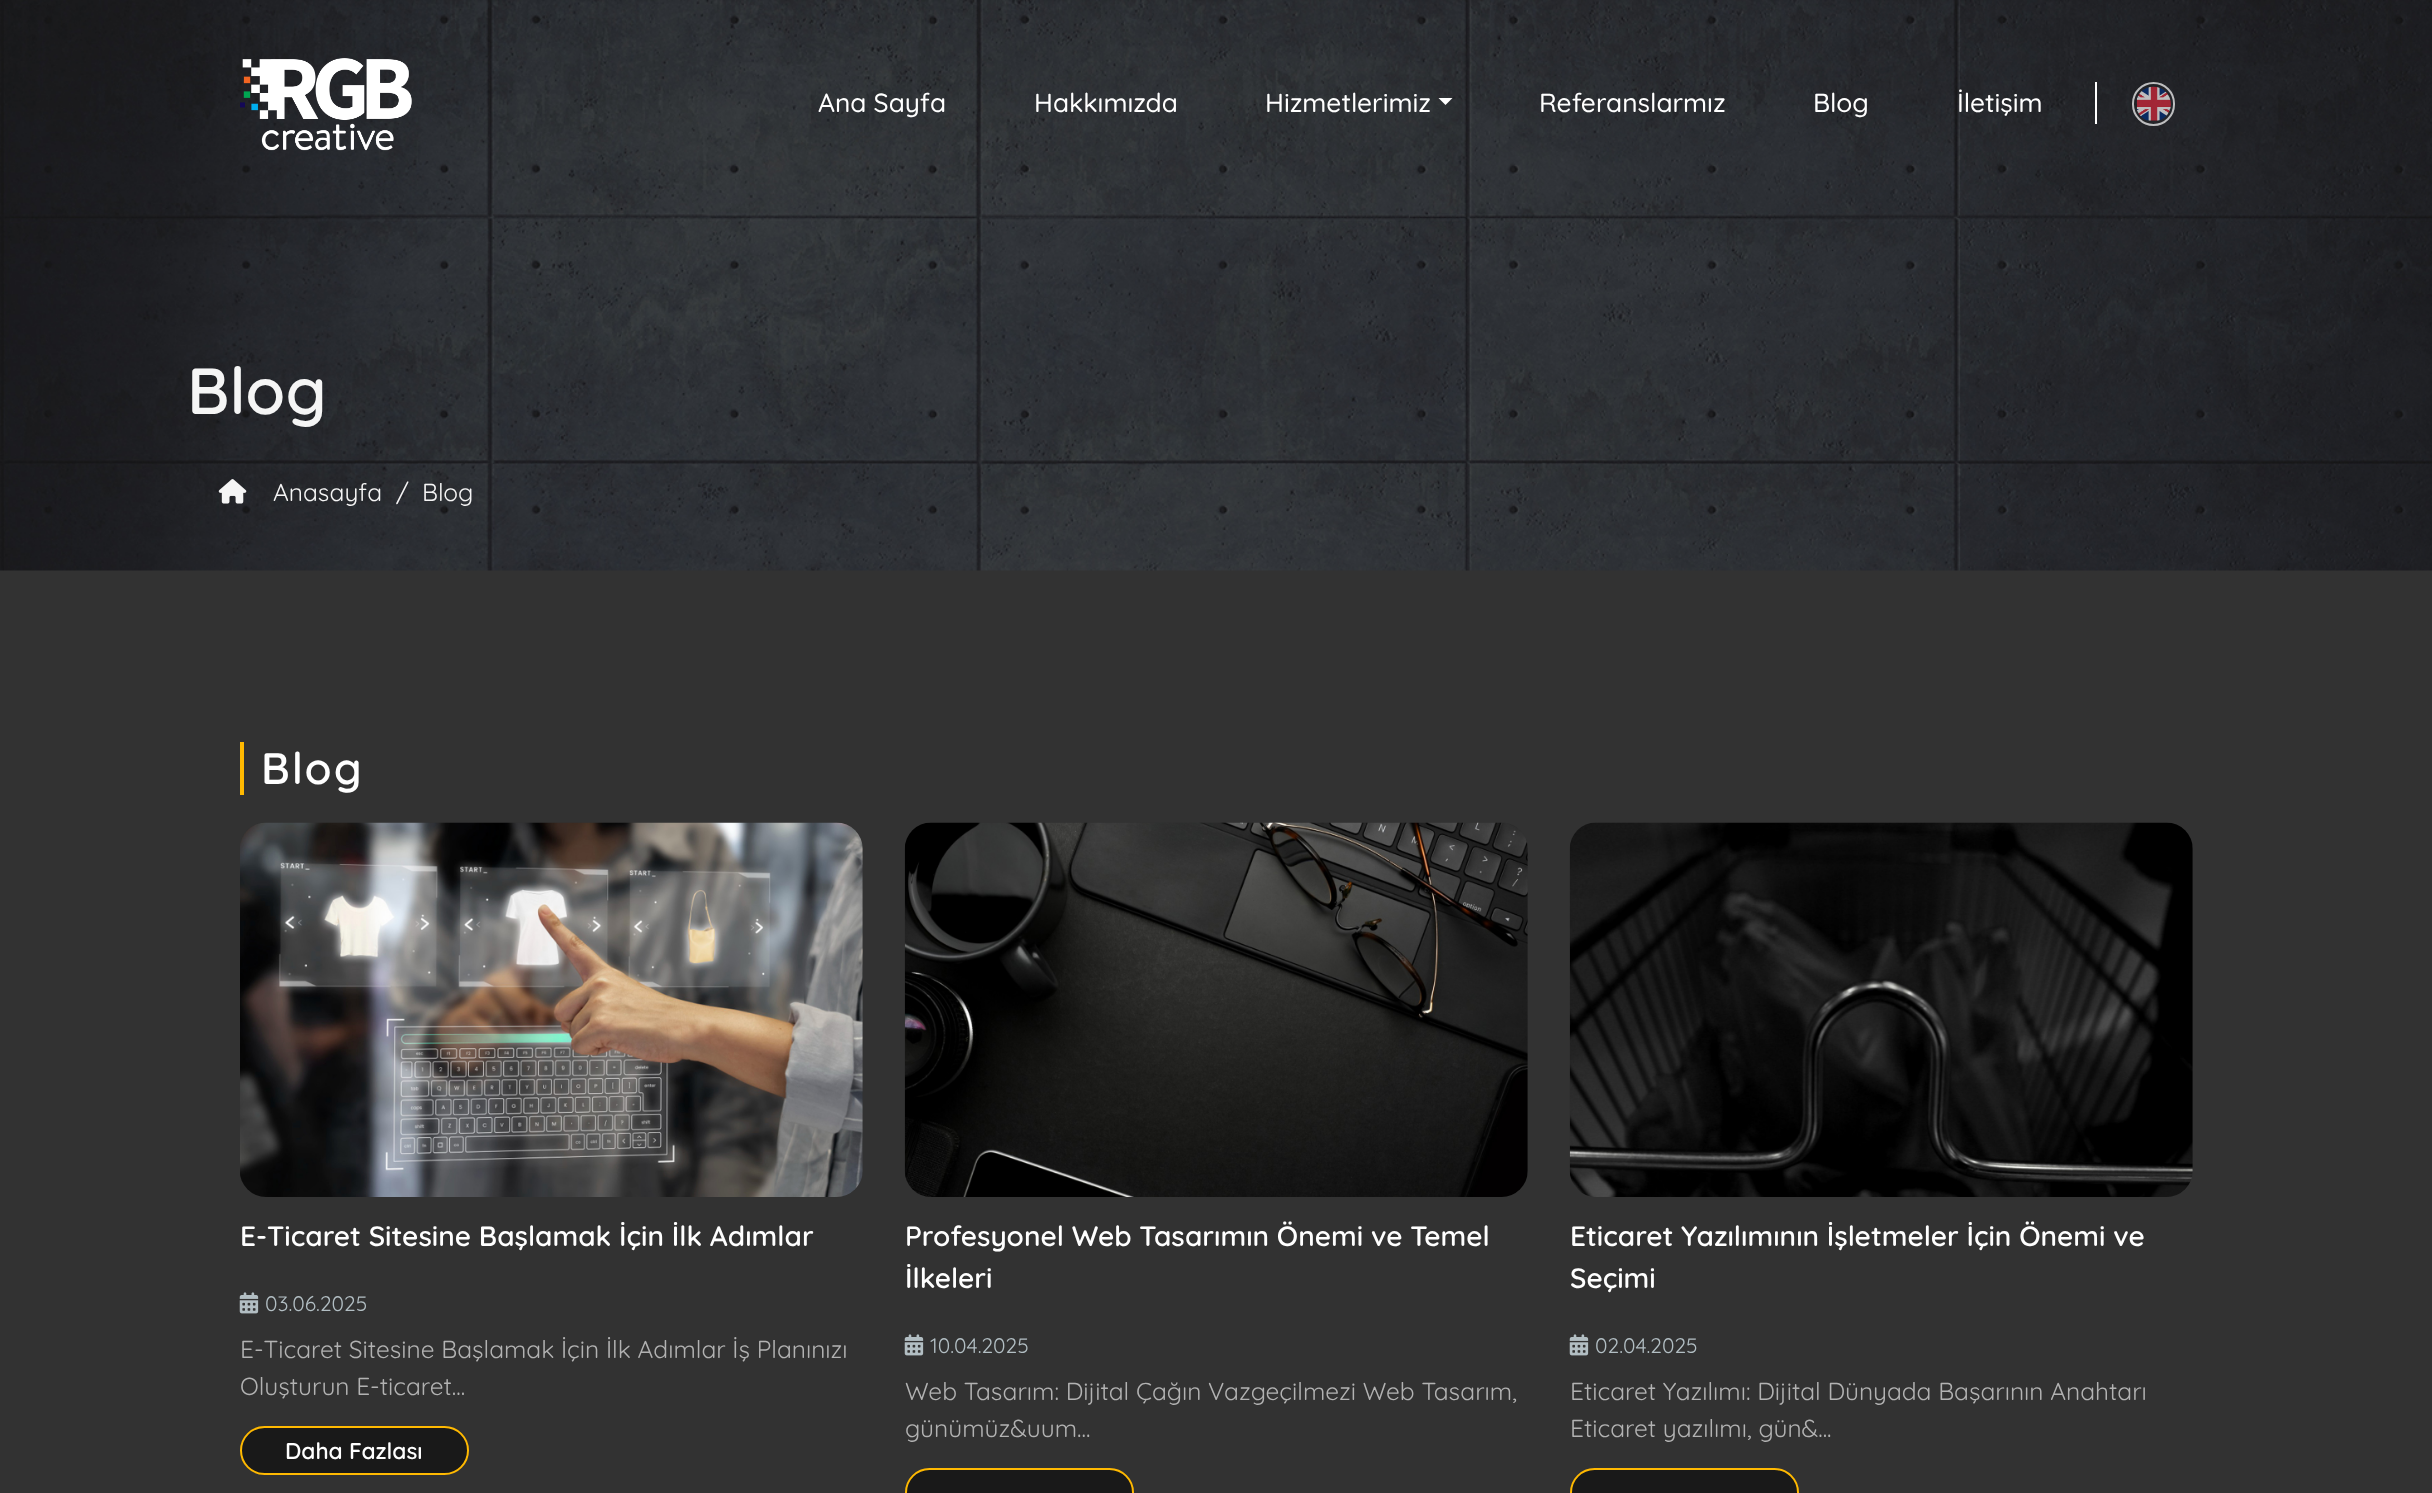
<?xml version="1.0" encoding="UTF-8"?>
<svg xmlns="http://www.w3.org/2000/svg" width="2432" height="1493">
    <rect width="100%" height="100%" fill="#323232"/>
    <image x="0" y="0" width="2432" height="571" href="img_03.png"/>
    <image x="240" y="58" width="172" height="93" href="img_01.png"/>
    <text x="818" y="112" font-family="Quicksand" font-size="26.25" font-weight="500" fill="#FFFFFF">Ana Sayfa</text>
    <text x="1034" y="112" font-family="Quicksand" font-size="26.25" font-weight="500" fill="#FFFFFF">Hakkımızda</text>
    <text x="1265" y="112" font-family="Quicksand" font-size="26.25" font-weight="500" fill="#FFFFFF">Hizmetlerimiz</text>
    <path d="M 1438.5 98 H 1452.5 L 1445.5 105 Z" fill="#FFFFFF"/>
    <text x="1539" y="112" font-family="Quicksand" font-size="26.25" font-weight="500" fill="#FFFFFF">Referanslarmız</text>
    <text x="1813" y="112" font-family="Quicksand" font-size="26.25" font-weight="500" fill="#FFFFFF">Blog</text>
    <text x="1957" y="112" font-family="Quicksand" font-size="26.25" font-weight="500" fill="#FFFFFF">İletişim</text>
    <rect x="2095" y="82" width="2" height="42" fill="#FFFFFF"/>
    <rect x="2133" y="83" width="41" height="42" rx="20.5" fill="none" stroke="#FFFFFF" stroke-opacity="0.7" stroke-width="2"/>
    <image x="2136" y="86" width="35" height="35" href="img_02.png"/>
    <text x="187" y="414" font-family="Quicksand" font-size="65" font-weight="600" fill="#F5F5F5">Blog</text>
    <image x="218" y="479" width="29" height="25" href="img_04.png"/>
    <text x="273" y="501" font-family="Quicksand" font-size="24.5" fill="#F5F5F5">Anasayfa</text>
    <text x="396" y="501" font-family="Quicksand" font-size="24.5" fill="#F5F5F5">/</text>
    <text x="422" y="501" font-family="Quicksand" font-size="24.5" fill="#F5F5F5">Blog</text>
    <rect x="240" y="742" width="4" height="53" fill="#FFB901"/>
    <text x="261" y="784" font-family="Quicksand" font-size="44" font-weight="600" letter-spacing="2" fill="#FFFFFF">Blog</text>
    <image x="240" y="822" width="623" height="375" href="img_05.png"/>
    <text x="240" y="1246" font-family="Quicksand" font-size="28" font-weight="600" fill="#FFFFFF">E-Ticaret Sitesine Başlamak İçin İlk Adımlar</text>
    <image x="239" y="1292" width="20" height="22" href="img_06.png"/>
    <text x="265" y="1311" font-family="Quicksand" font-size="21" fill="#B2BEC3">03.06.2025</text>
    <text font-family="Quicksand" font-size="24.5" fill="#B2B2B2">
        <tspan x="240" y="1358">E-Ticaret Sitesine Başlamak İçin İlk Adımlar İş Planınızı</tspan>
        <tspan x="240" y="1395">Oluşturun E-ticaret...</tspan>
    </text>
    <rect x="241" y="1427" width="227" height="47" rx="23.5" fill="#191919" stroke="#FFB901" stroke-width="2"/>
    <text x="285" y="1459" font-family="Quicksand" font-size="22.75" font-weight="600" fill="#FFFFFF">Daha Fazlası</text>
    <image x="904" y="822" width="624" height="375" href="img_07.png"/>
    <text font-family="Quicksand" font-size="28" font-weight="600" fill="#FFFFFF">
        <tspan x="905" y="1246">Profesyonel Web Tasarımın Önemi ve Temel</tspan>
        <tspan x="905" y="1288">İlkeleri</tspan>
    </text>
    <image x="904" y="1334" width="20" height="22" href="img_06.png"/>
    <text x="930" y="1353" font-family="Quicksand" font-size="21" fill="#B2BEC3">10.04.2025</text>
    <text font-family="Quicksand" font-size="24.5" fill="#B2B2B2">
        <tspan x="905" y="1400">Web Tasarım: Dijital Çağın Vazgeçilmezi Web Tasarım,</tspan>
        <tspan x="905" y="1437">günümüz&amp;uum...</tspan>
    </text>
    <rect x="906" y="1469" width="227" height="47" rx="23.5" fill="#191919" stroke="#FFB901" stroke-width="2"/>
    <image x="1569" y="822" width="624" height="375" href="img_08.png"/>
    <text font-family="Quicksand" font-size="28" font-weight="600" fill="#FFFFFF">
        <tspan x="1570" y="1246">Eticaret Yazılımının İşletmeler İçin Önemi ve</tspan>
        <tspan x="1570" y="1288">Seçimi</tspan>
    </text>
    <image x="1569" y="1334" width="20" height="22" href="img_06.png"/>
    <text x="1595" y="1353" font-family="Quicksand" font-size="21" fill="#B2BEC3">02.04.2025</text>
    <text font-family="Quicksand" font-size="24.5" fill="#B2B2B2">
        <tspan x="1570" y="1400">Eticaret Yazılımı: Dijital Dünyada Başarının Anahtarı</tspan>
        <tspan x="1570" y="1437">Eticaret yazılımı, gün&amp;...</tspan>
    </text>
    <rect x="1571" y="1469" width="227" height="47" rx="23.5" fill="#191919" stroke="#FFB901" stroke-width="2"/>
</svg>
